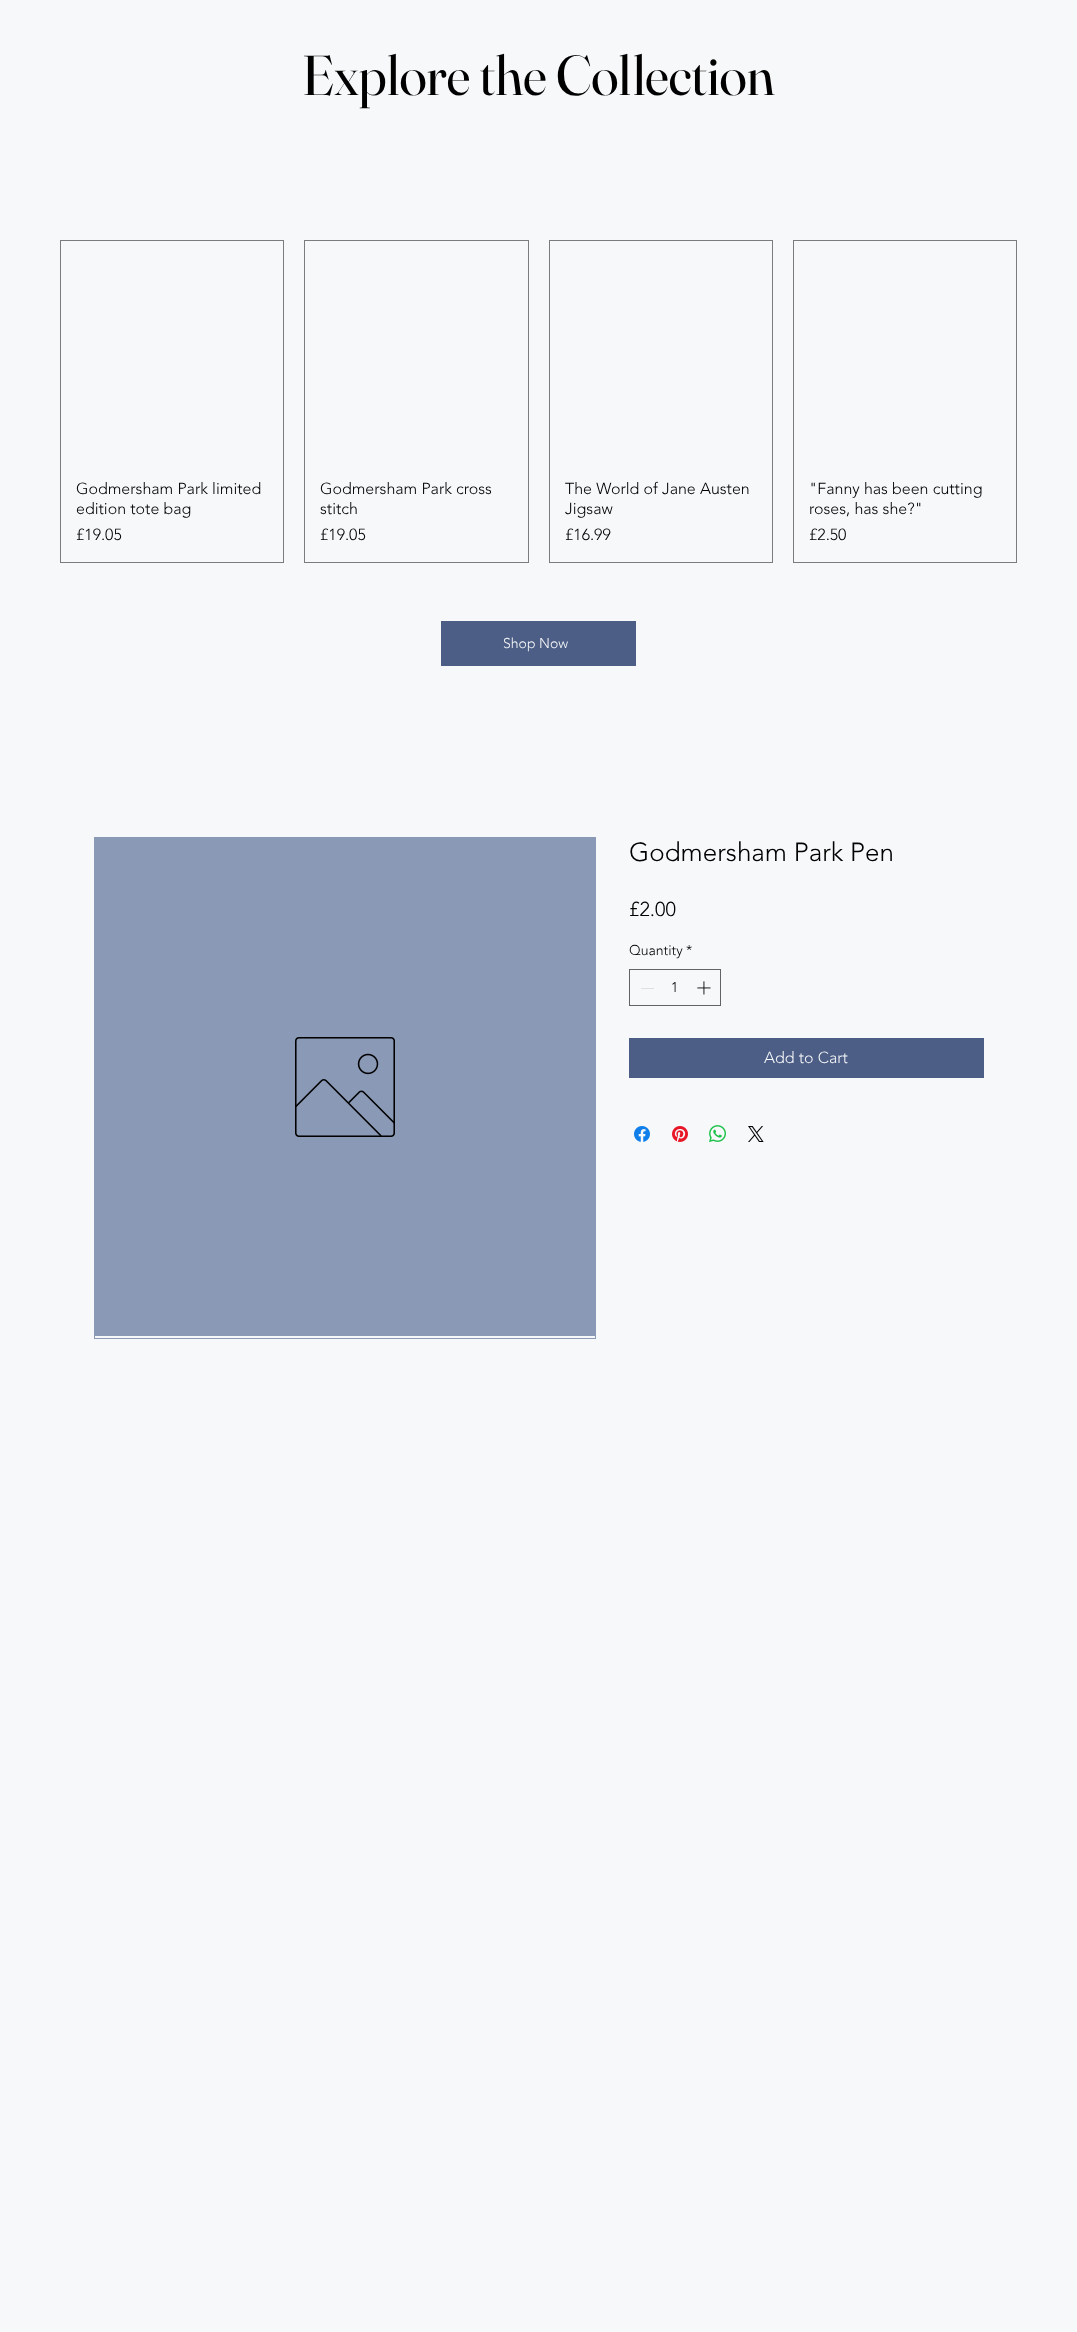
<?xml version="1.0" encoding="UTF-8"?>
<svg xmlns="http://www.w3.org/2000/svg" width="1077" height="2332">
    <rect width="100%" height="100%" fill="#F6F8F9"/>
    <text x="302" y="95" font-family="Fraunces" font-size="56" fill="#000000">Explore the Collection</text>
    <rect x="60.5" y="240.5" width="223" height="322" fill="none" stroke="#7B7C7D"/>
    <text font-family="'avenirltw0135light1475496'" font-size="16" font-weight="300" fill="#000000">
        <tspan x="76" y="494">Godmersham Park limited</tspan>
        <tspan x="76" y="514">edition tote bag</tspan>
        <tspan x="76" y="540">£19.05</tspan>
    </text>
    <rect x="304.5" y="240.5" width="224" height="322" fill="none" stroke="#7B7C7D"/>
    <text font-family="'avenirltw0135light1475496'" font-size="16" font-weight="300" fill="#000000">
        <tspan x="320" y="494">Godmersham Park cross</tspan>
        <tspan x="320" y="514">stitch</tspan>
        <tspan x="320" y="540">£19.05</tspan>
    </text>
    <rect x="549.5" y="240.5" width="223" height="322" fill="none" stroke="#7B7C7D"/>
    <text font-family="'avenirltw0135light1475496'" font-size="16" font-weight="300" fill="#000000">
        <tspan x="565" y="494">The World of Jane Austen</tspan>
        <tspan x="565" y="514">Jigsaw</tspan>
        <tspan x="565" y="540">£16.99</tspan>
    </text>
    <rect x="793.5" y="240.5" width="223" height="322" fill="none" stroke="#7B7C7D"/>
    <text font-family="'avenirltw0135light1475496'" font-size="16" font-weight="300" fill="#000000">
        <tspan x="809" y="494">"Fanny has been cutting</tspan>
        <tspan x="809" y="514">roses, has she?"</tspan>
        <tspan x="809" y="540">£2.50</tspan>
    </text>
    <rect x="441" y="621" width="195" height="45" fill="#4D5E86"/>
    <text x="503" y="648" font-family="'avenirltw0135light1475496'" font-size="14" font-weight="300" fill="#F6F8F9">Shop Now</text>
    <rect x="94.5" y="837.5" width="501" height="501" fill="none" stroke="#8A99B6"/>
    <rect x="95" y="838" width="500" height="498" fill="#8A99B6"/>
    <image x="295" y="1037" width="100" height="100" href="img_01.png"/>
    <text x="629" y="861" font-family="'avenirltw0135light1475496'" font-size="26" font-weight="300" fill="#000000">Godmersham Park Pen</text>
    <text x="629" y="916" font-family="'avenirltw0135light1475496'" font-size="20" font-weight="300" fill="#000000">£2.00</text>
    <text x="629" y="955" font-family="'avenirltw0135light1475496'" font-size="14" font-weight="300" fill="#000000">Quantity</text>
    <text x="686" y="955" font-family="'avenirltw0135light1475496'" font-size="14" font-weight="300" fill="#000000">*</text>
    <rect x="629.5" y="969.5" width="91" height="36" fill="none" stroke="#626364"/>
    <rect x="641" y="988" width="13" height="1" fill="#DFE0E0"/>
    <text x="671" y="992" font-family="'avenirltw0135light1475496'" font-size="14" font-weight="300" fill="#000000">1</text>
    <image x="697" y="981" width="14" height="14" href="img_02.png"/>
    <rect x="629" y="1038" width="355" height="40" fill="#4D5E86"/>
    <text x="764" y="1063" font-family="'avenirltw0135light1475496'" font-size="16" font-weight="300" fill="#F6F8F9">Add to Cart</text>
    <image x="634" y="1126" width="16" height="16" href="img_03.png"/>
    <image x="672" y="1126" width="16" height="16" href="img_04.png"/>
    <image x="709" y="1125" width="17" height="17" href="img_05.png"/>
    <image x="748" y="1126" width="16" height="16" href="img_06.png"/>
</svg>
